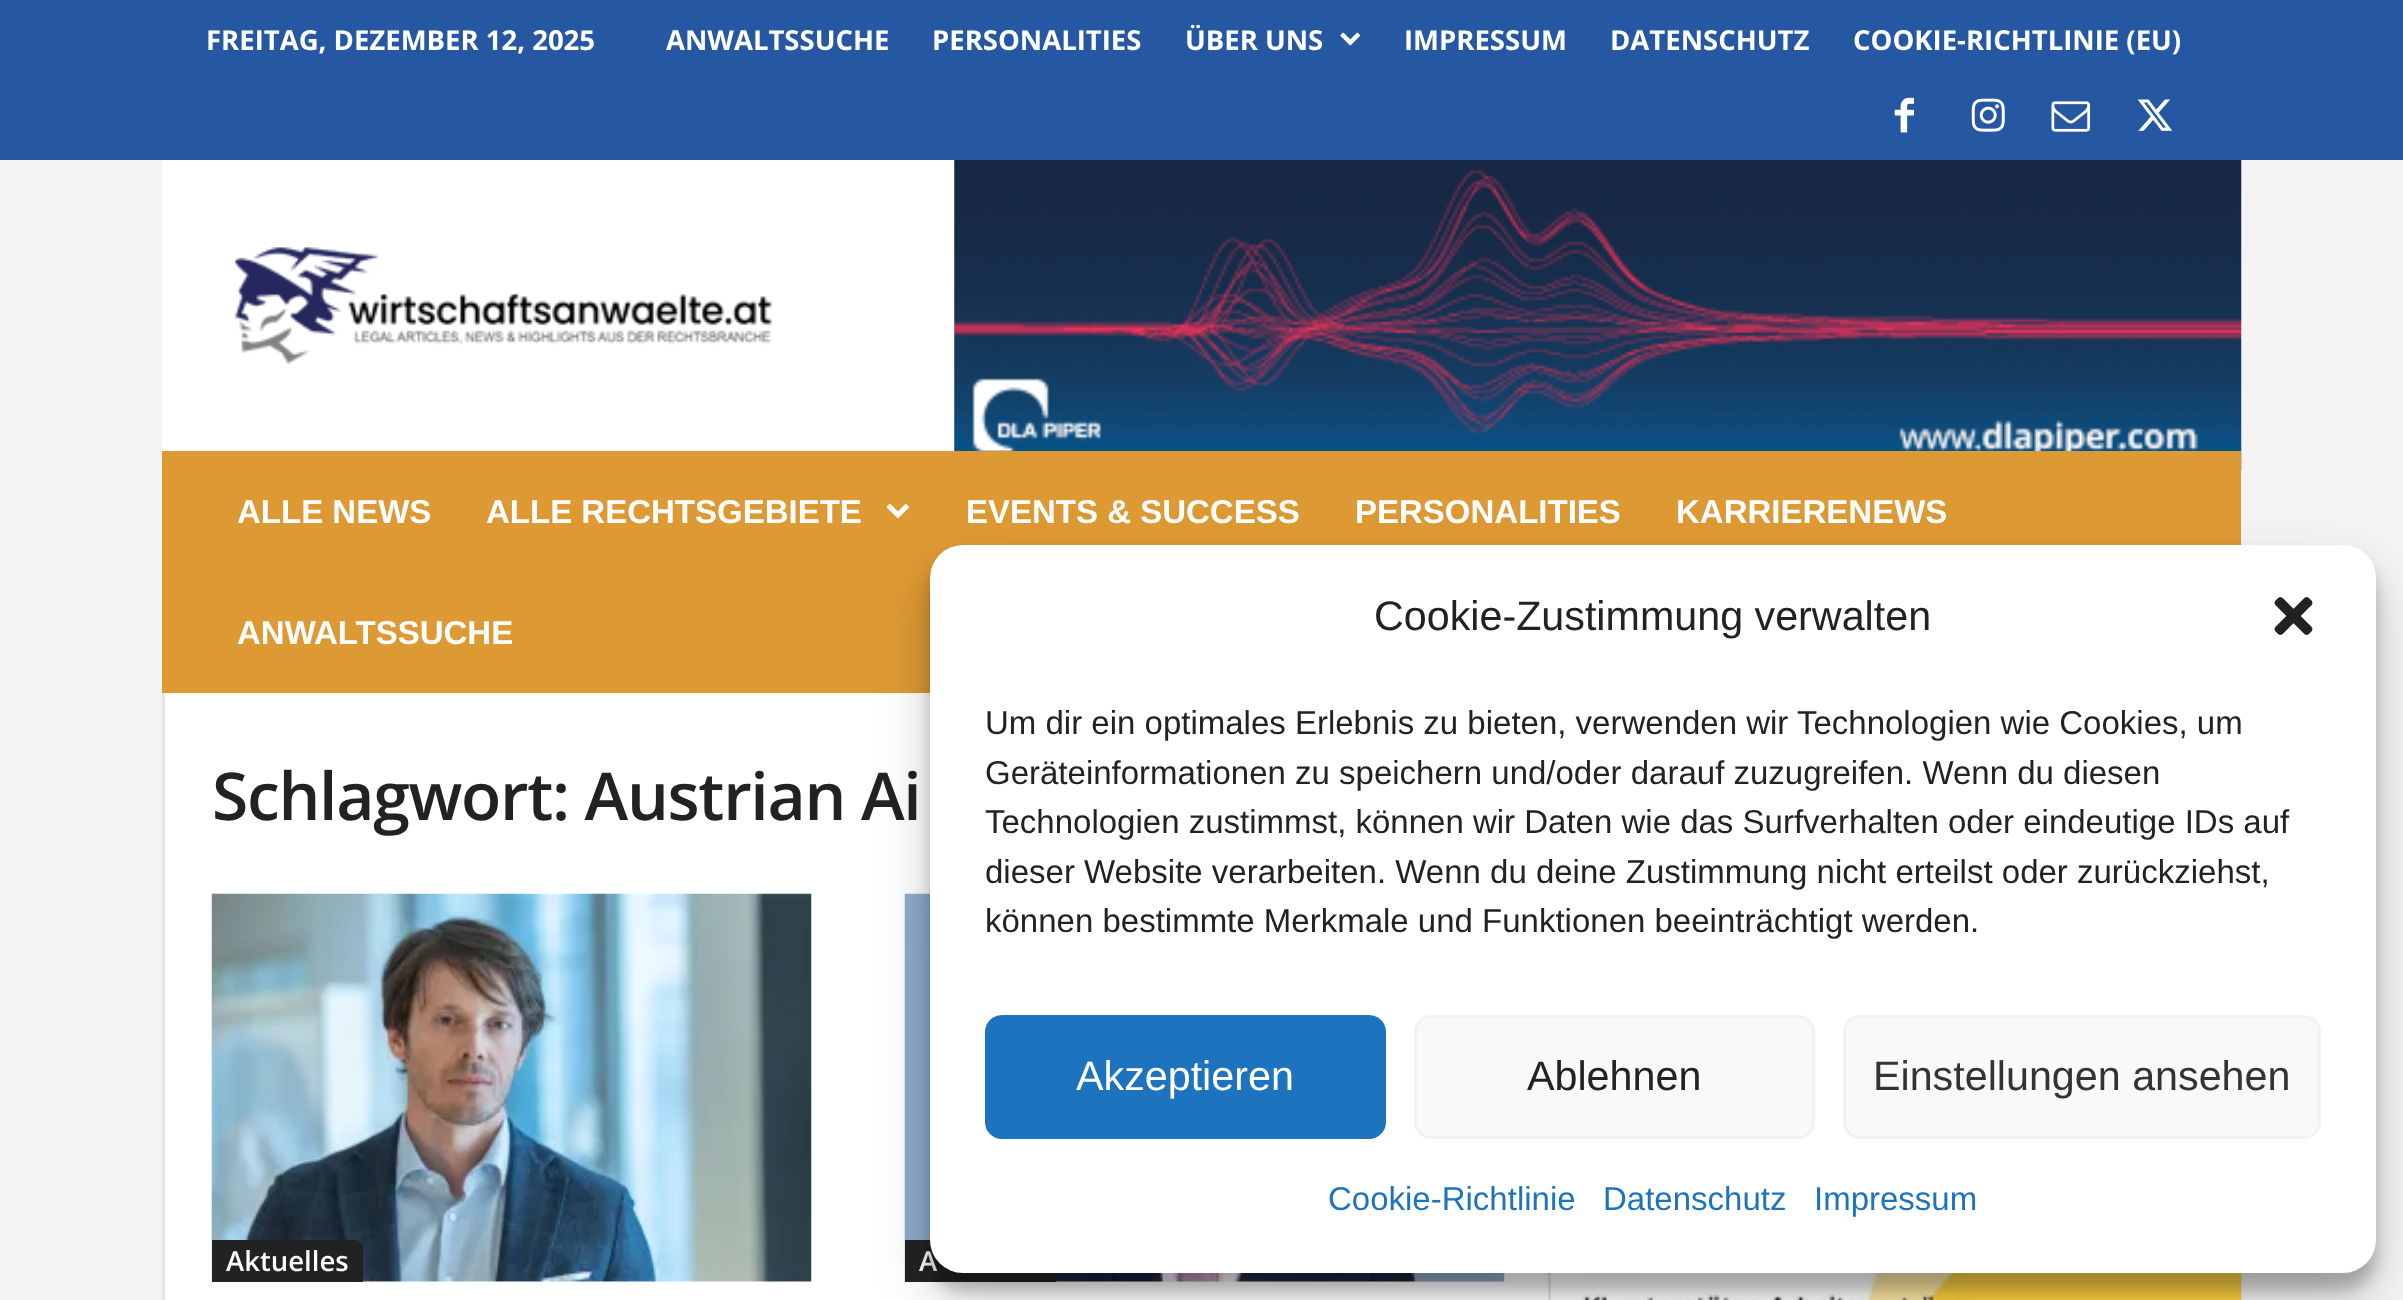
<?xml version="1.0" encoding="UTF-8"?>
<svg xmlns="http://www.w3.org/2000/svg" width="2403" height="1300">
    <defs>
        <filter id="blur1" x="-50%" y="-200%" width="200%" height="500%"><feGaussianBlur stdDeviation="8"/></filter>
        <filter id="blur2" x="-50%" y="-200%" width="200%" height="500%"><feGaussianBlur stdDeviation="27.5"/></filter>
    </defs>
    <rect width="100%" height="100%" fill="#F4F4F4"/>
    <rect x="0" y="0" width="2403" height="160" fill="#2557A3"/>
    <text x="206" y="50" font-family="Open Sans" font-size="27.5" font-weight="700" fill="#FFFFFF">FREITAG, DEZEMBER 12, 2025</text>
    <text x="666" y="50" font-family="Open Sans" font-size="27.5" font-weight="700" fill="#FFFFFF">ANWALTSSUCHE</text>
    <text x="932" y="50" font-family="Open Sans" font-size="27.5" font-weight="700" fill="#FFFFFF">PERSONALITIES</text>
    <text x="1185" y="50" font-family="Open Sans" font-size="27.5" font-weight="700" fill="#FFFFFF">ÜBER UNS</text>
    <image x="1340" y="32" width="21" height="14" href="img_01.png"/>
    <text x="1404" y="50" font-family="Open Sans" font-size="27.5" font-weight="700" fill="#FFFFFF">IMPRESSUM</text>
    <text x="1610" y="50" font-family="Open Sans" font-size="27.5" font-weight="700" fill="#FFFFFF">DATENSCHUTZ</text>
    <text x="1853" y="50" font-family="Open Sans" font-size="27.5" font-weight="700" fill="#FFFFFF">COOKIE-RICHTLINIE (EU)</text>
    <image x="1894" y="97" width="20" height="36" href="img_02.png"/>
    <image x="1971" y="98" width="34" height="34" href="img_03.png"/>
    <image x="2051" y="101" width="39" height="31" href="img_04.png"/>
    <image x="2137" y="99" width="36" height="32" href="img_05.png"/>
    <rect x="162" y="160" width="793" height="291" fill="#FFFFFF"/>
    <image x="234" y="247" width="538" height="117" href="img_06.png"/>
    <image x="954" y="160" width="1288" height="311" href="img_07.png"/>
    <rect x="162" y="451" width="2079" height="242" fill="#DD9933"/>
    <text x="237" y="523" font-family="Liberation Sans" font-size="33" font-weight="700" fill="#FFFFFF">ALLE NEWS</text>
    <text x="486" y="523" font-family="Liberation Sans" font-size="33" font-weight="700" fill="#FFFFFF">ALLE RECHTSGEBIETE</text>
    <image x="886" y="503" width="23" height="16" href="img_08.png"/>
    <text x="966" y="523" font-family="Liberation Sans" font-size="33" font-weight="700" fill="#FFFFFF">EVENTS &amp; SUCCESS</text>
    <text x="1355" y="523" font-family="Liberation Sans" font-size="33" font-weight="700" fill="#FFFFFF">PERSONALITIES</text>
    <text x="1676" y="523" font-family="Liberation Sans" font-size="33" font-weight="700" fill="#FFFFFF">KARRIERENEWS</text>
    <text x="237" y="644" font-family="Liberation Sans" font-size="33" font-weight="700" fill="#FFFFFF">ANWALTSSUCHE</text>
    <rect x="165" y="693" width="1416" height="607" fill="#FFFFFF"/>
    <rect x="162" y="693" width="3" height="607" fill="#E6E6E6"/>
    <text x="212" y="820" font-family="Open Sans" font-size="66" font-weight="600" letter-spacing="-1.3" fill="#222222">Schlagwort: Austrian Ai</text>
    <image x="211" y="893" width="601" height="389" href="img_09.png"/>
    <path d="M 212 1240 H 355 C 359.5 1240 363 1243.5 363 1248 V 1282 H 212 Z" fill="#222222"/>
    <text x="226" y="1271" font-family="Open Sans" font-size="27.5" font-weight="600" fill="#FFFFFF">Aktuelles</text>
    <image x="904" y="893" width="601" height="389" href="img_10.png"/>
    <rect x="905" y="1240" width="151" height="42" fill="#222222"/>
    <text x="919" y="1271" font-family="Open Sans" font-size="27.5" font-weight="600" fill="#FFFFFF">A</text>
    <rect x="1548" y="1273" width="3" height="27" fill="#E6E6E6"/>
    <image x="1581" y="1273" width="660" height="27" href="img_11.png"/>
    <rect x="2241" y="1273" width="1" height="27" fill="#E6E6E6"/>
    <rect x="930" y="561" width="1446" height="729" rx="33" fill="#000000" fill-opacity="0.23" filter="url(#blur1)"/>
    <rect x="930" y="572" width="1446" height="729" rx="33" fill="#000000" fill-opacity="0.19" filter="url(#blur2)"/>
    <rect x="930" y="545" width="1446" height="728" rx="33" fill="#FFFFFF"/>
    <text x="1374" y="630" font-family="Liberation Sans" font-size="41.25" fill="#222222">Cookie-Zustimmung verwalten</text>
    <image x="2274" y="597" width="39" height="38" href="img_12.png"/>
    <text font-family="Liberation Sans" font-size="33" fill="#222222">
        <tspan x="985" y="734">Um dir ein optimales Erlebnis zu bieten, verwenden wir Technologien wie Cookies, um</tspan>
        <tspan x="985" y="784">Geräteinformationen zu speichern und/oder darauf zuzugreifen. Wenn du diesen</tspan>
        <tspan x="985" y="833">Technologien zustimmst, können wir Daten wie das Surfverhalten oder eindeutige IDs auf</tspan>
        <tspan x="985" y="883">dieser Website verarbeiten. Wenn du deine Zustimmung nicht erteilst oder zurückziehst,</tspan>
        <tspan x="985" y="932">können bestimmte Merkmale und Funktionen beeinträchtigt werden.</tspan>
    </text>
    <rect x="986.5" y="1016.5" width="398" height="121" rx="15.5" fill="#1E73BE" stroke="#1E73BE" stroke-width="3"/>
    <text x="1076" y="1090" font-family="Liberation Sans" font-size="41.25" fill="#FFFFFF">Akzeptieren</text>
    <rect x="1415.5" y="1016.5" width="398" height="121" rx="15.5" fill="#F9F9F9" stroke="#F2F2F2" stroke-width="3"/>
    <text x="1527" y="1090" font-family="Liberation Sans" font-size="41.25" fill="#222222">Ablehnen</text>
    <rect x="1844.5" y="1016.5" width="475" height="121" rx="15.5" fill="#F9F9F9" stroke="#F2F2F2" stroke-width="3"/>
    <text x="1873" y="1090" font-family="Liberation Sans" font-size="41.25" fill="#333333">Einstellungen ansehen</text>
    <text x="1328" y="1210" font-family="Liberation Sans" font-size="33" fill="#1E73BE">Cookie-Richtlinie</text>
    <text x="1603" y="1210" font-family="Liberation Sans" font-size="33" fill="#1E73BE">Datenschutz</text>
    <text x="1814" y="1210" font-family="Liberation Sans" font-size="33" fill="#1E73BE">Impressum</text>
</svg>
